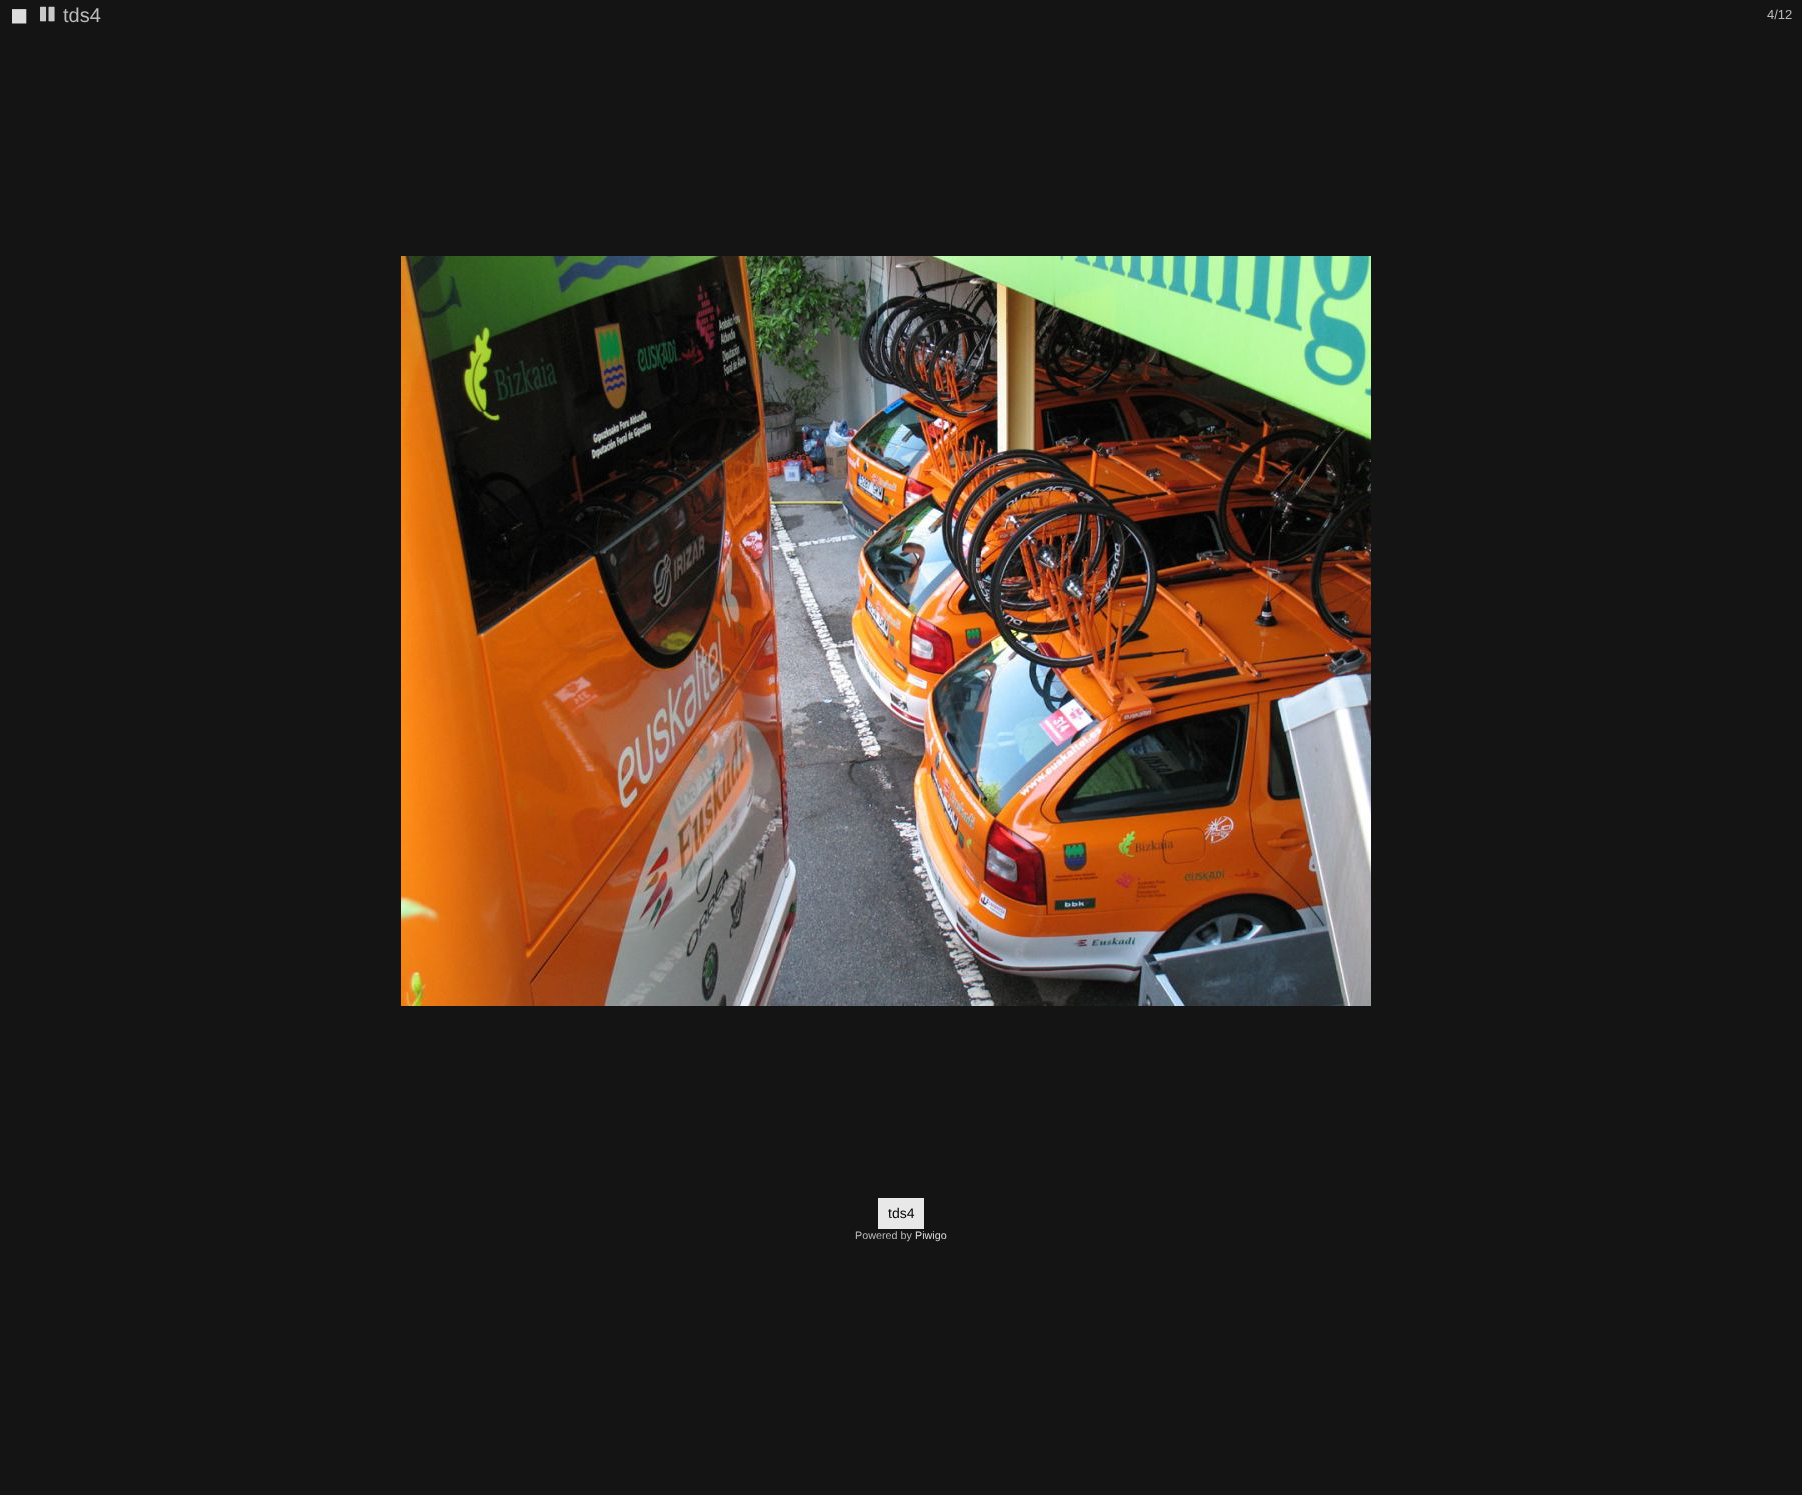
<?xml version="1.0" encoding="UTF-8"?>
<svg xmlns="http://www.w3.org/2000/svg" width="1802" height="1495">
    <rect width="100%" height="100%" fill="#141414"/>
    <text x="10" y="22" font-family="DejaVu Sans" font-size="22" fill="#DDDDDD">◼</text>
    <image x="40" y="6" width="15" height="16" href="img_01.png"/>
    <text x="63" y="22" font-family="Liberation Sans" font-size="20" fill="#BBBBBB">tds4</text>
    <text x="1767" y="19" font-family="Liberation Sans" font-size="13" fill="#BBBBBB">4/12</text>
    <image x="401" y="256" width="970" height="750" href="img_02.png"/>
    <rect x="878" y="1198" width="46" height="31" fill="#E8E8E8"/>
    <text x="888" y="1218" font-family="Liberation Sans" font-size="14" fill="#000000">tds4</text>
    <text x="855" y="1239" font-family="Liberation Sans" font-size="10.75" fill="#BBBBBB">Powered by</text>
    <text x="915" y="1239" font-family="Liberation Sans" font-size="10.75" fill="#DDDDDD">Piwigo</text>
</svg>
